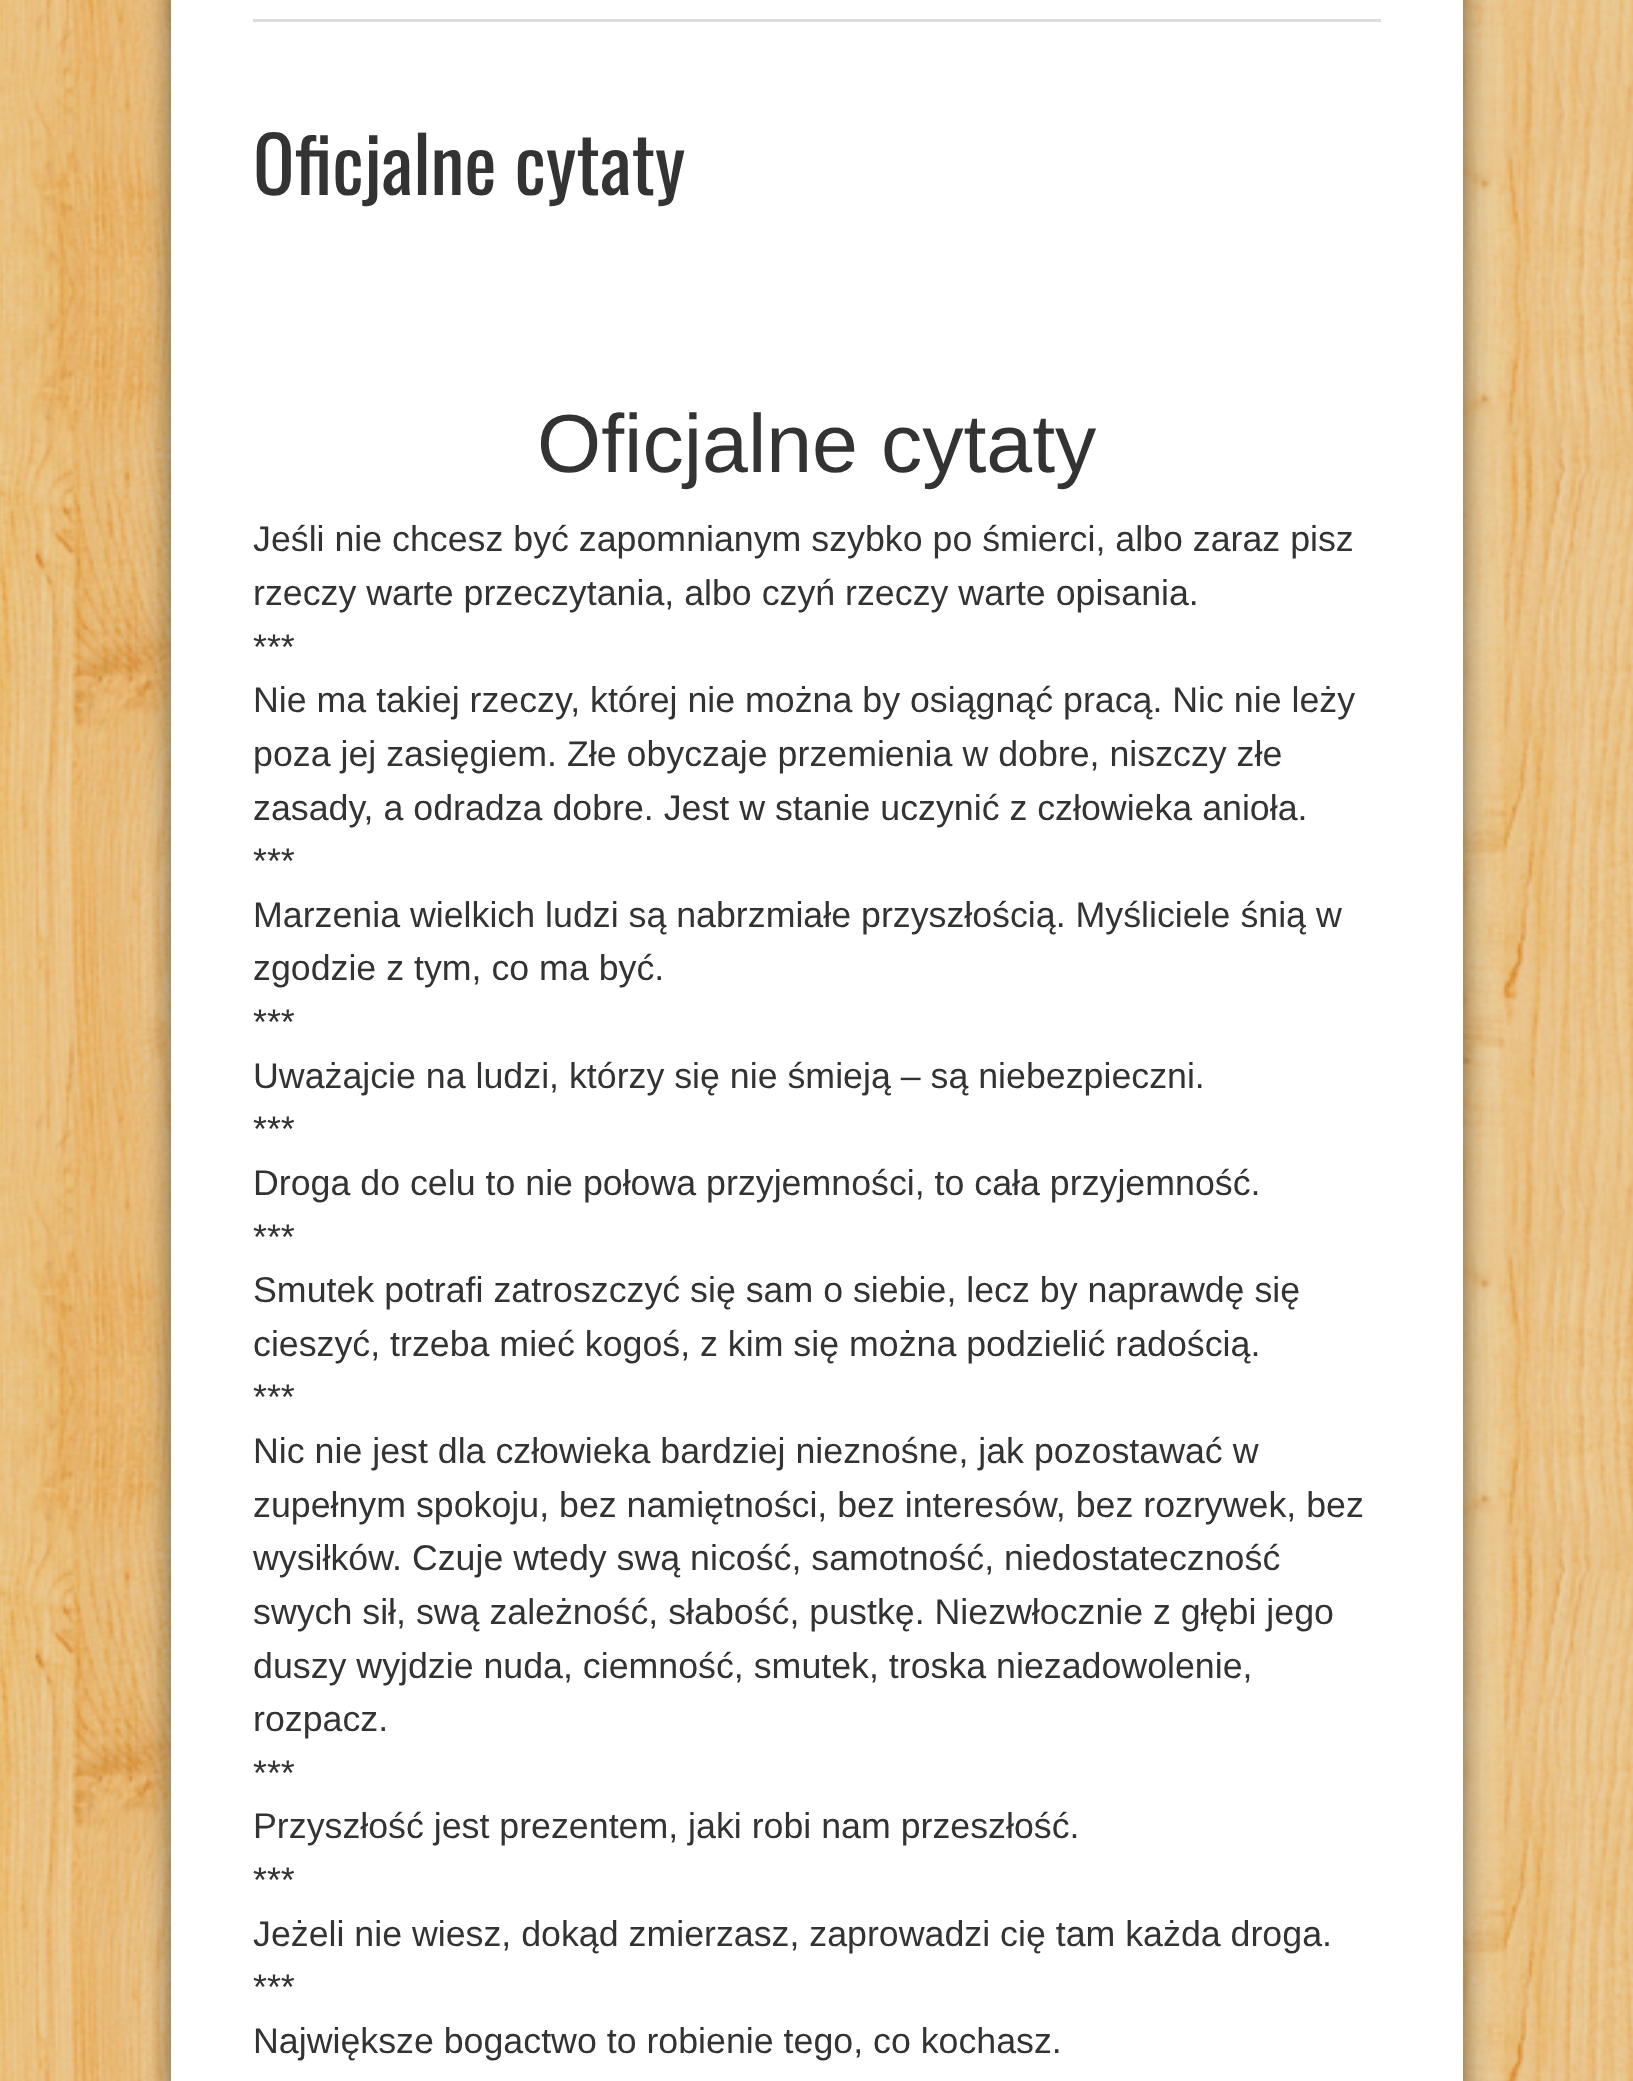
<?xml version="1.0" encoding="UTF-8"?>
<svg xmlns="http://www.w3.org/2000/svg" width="1633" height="2081">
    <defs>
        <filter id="blur1" x="-50%" y="-200%" width="200%" height="500%"><feGaussianBlur stdDeviation="14"/></filter>
    </defs>
    <rect width="100%" height="100%" fill="#FFFFFF"/>
    <image x="0" y="0" width="1633" height="2081" href="img_01.png"/>
    <rect x="171" y="-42" width="1292" height="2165" fill="#000000" fill-opacity="0.5" filter="url(#blur1)"/>
    <rect x="171" y="0" width="1292" height="2081" fill="#FFFFFF"/>
    <rect x="253" y="19" width="1128" height="3" fill="#DDDDDD"/>
    <text x="253" y="195" font-family="Oswald" font-size="77" fill="#333333">Oficjalne cytaty</text>
    <text x="537" y="472" font-family="Liberation Sans" font-size="82.5" fill="#333333">Oficjalne cytaty</text>
    <text font-family="Liberation Sans" font-size="35.75" fill="#333333">
        <tspan x="253" y="551">Jeśli nie chcesz być zapomnianym szybko po śmierci, albo zaraz pisz</tspan>
        <tspan x="253" y="605">rzeczy warte przeczytania, albo czyń rzeczy warte opisania.</tspan>
        <tspan x="253" y="659">***</tspan>
        <tspan x="253" y="712">Nie ma takiej rzeczy, której nie można by osiągnąć pracą. Nic nie leży</tspan>
        <tspan x="253" y="766">poza jej zasięgiem. Złe obyczaje przemienia w dobre, niszczy złe</tspan>
        <tspan x="253" y="820">zasady, a odradza dobre. Jest w stanie uczynić z człowieka anioła.</tspan>
        <tspan x="253" y="873">***</tspan>
        <tspan x="253" y="927">Marzenia wielkich ludzi są nabrzmiałe przyszłością. Myśliciele śnią w</tspan>
        <tspan x="253" y="980">zgodzie z tym, co ma być.</tspan>
        <tspan x="253" y="1034">***</tspan>
        <tspan x="253" y="1088">Uważajcie na ludzi, którzy się nie śmieją – są niebezpieczni.</tspan>
        <tspan x="253" y="1141">***</tspan>
        <tspan x="253" y="1195">Droga do celu to nie połowa przyjemności, to cała przyjemność.</tspan>
        <tspan x="253" y="1249">***</tspan>
        <tspan x="253" y="1302">Smutek potrafi zatroszczyć się sam o siebie, lecz by naprawdę się</tspan>
        <tspan x="253" y="1356">cieszyć, trzeba mieć kogoś, z kim się można podzielić radością.</tspan>
        <tspan x="253" y="1409">***</tspan>
        <tspan x="253" y="1463">Nic nie jest dla człowieka bardziej nieznośne, jak pozostawać w</tspan>
        <tspan x="253" y="1517">zupełnym spokoju, bez namiętności, bez interesów, bez rozrywek, bez</tspan>
        <tspan x="253" y="1570">wysiłków. Czuje wtedy swą nicość, samotność, niedostateczność</tspan>
        <tspan x="253" y="1624">swych sił, swą zależność, słabość, pustkę. Niezwłocznie z głębi jego</tspan>
        <tspan x="253" y="1678">duszy wyjdzie nuda, ciemność, smutek, troska niezadowolenie,</tspan>
        <tspan x="253" y="1731">rozpacz.</tspan>
        <tspan x="253" y="1785">***</tspan>
        <tspan x="253" y="1838">Przyszłość jest prezentem, jaki robi nam przeszłość.</tspan>
        <tspan x="253" y="1892">***</tspan>
        <tspan x="253" y="1946">Jeżeli nie wiesz, dokąd zmierzasz, zaprowadzi cię tam każda droga.</tspan>
        <tspan x="253" y="1999">***</tspan>
        <tspan x="253" y="2053">Największe bogactwo to robienie tego, co kochasz.</tspan>
    </text>
</svg>
